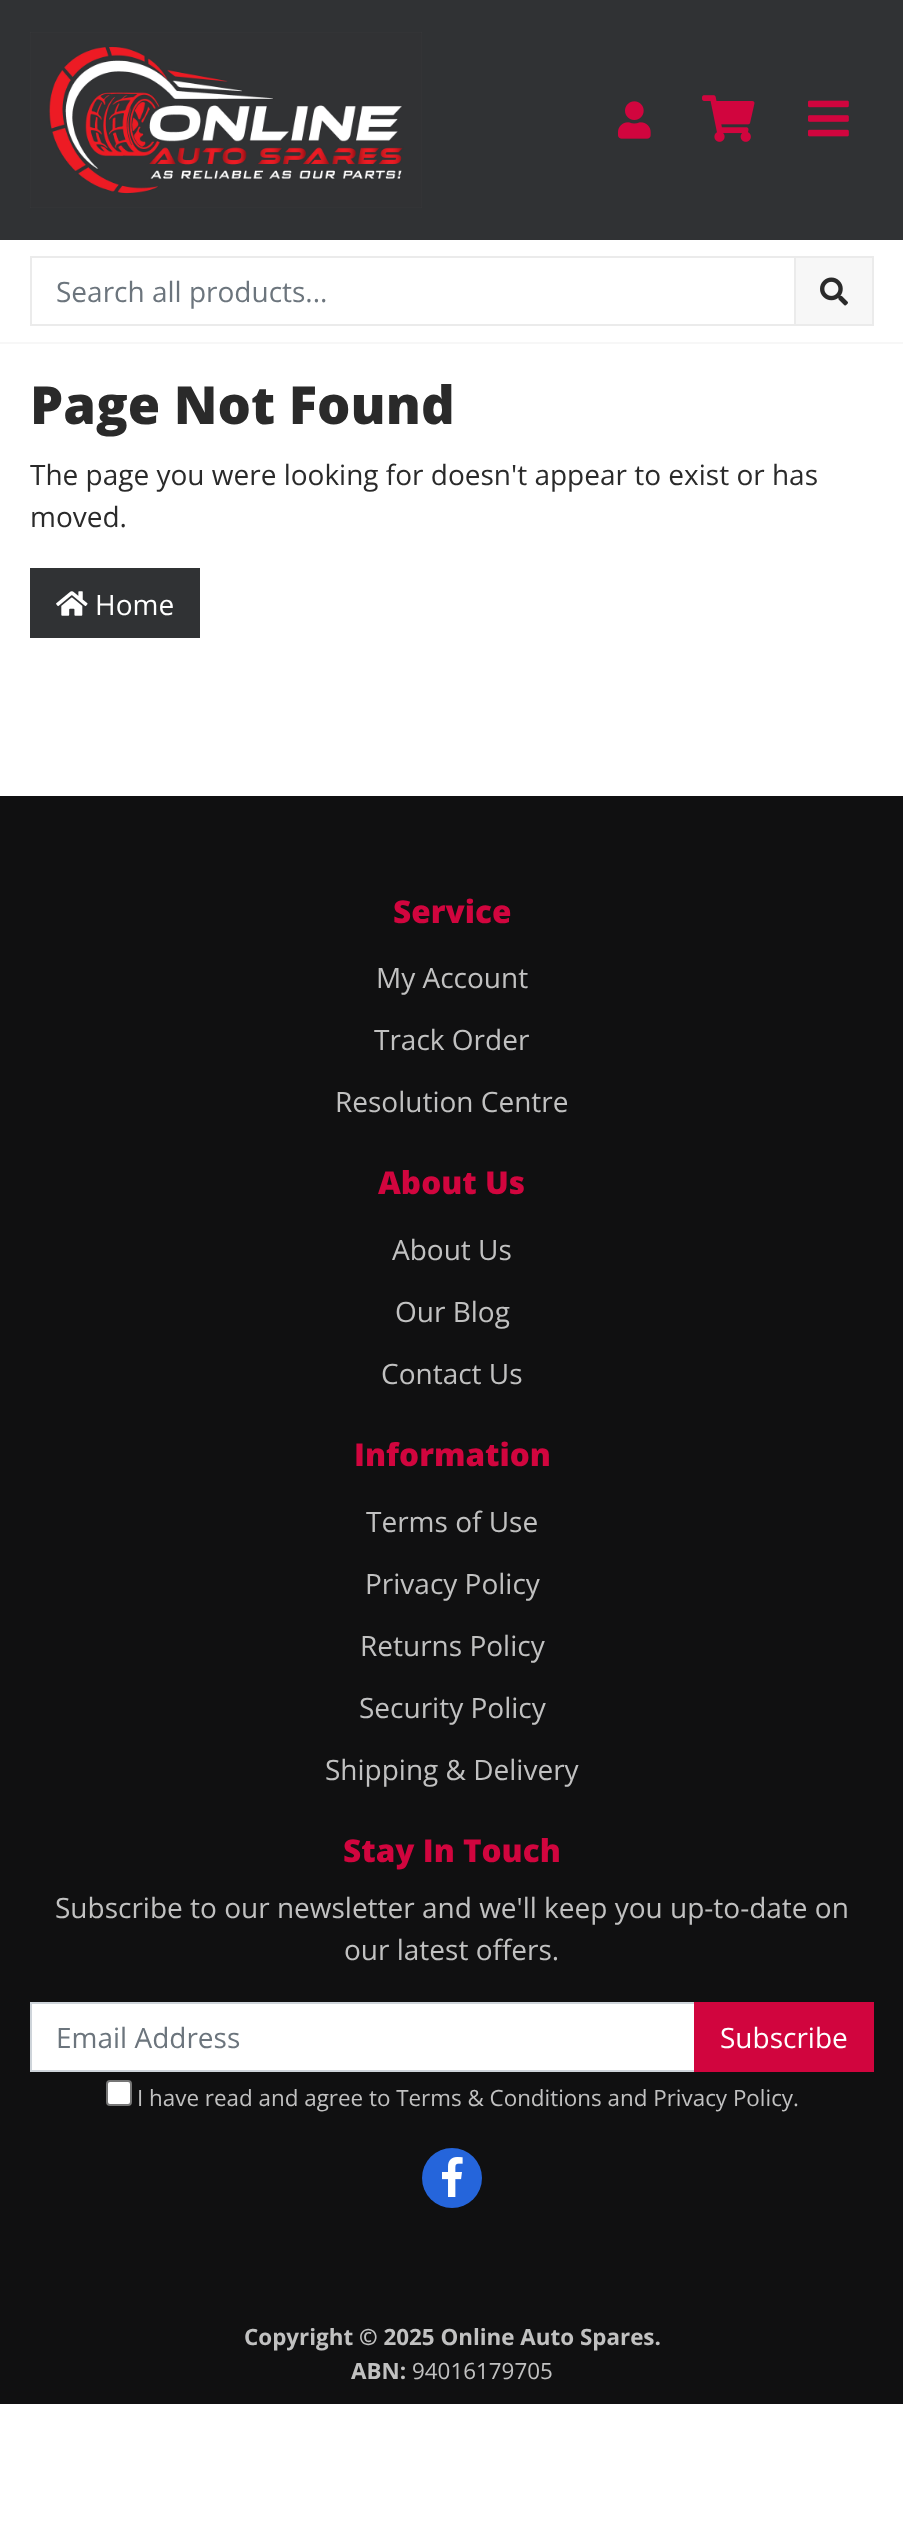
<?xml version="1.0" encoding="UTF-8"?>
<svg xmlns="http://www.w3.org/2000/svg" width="903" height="2530">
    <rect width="100%" height="100%" fill="#FFFFFF"/>
    <rect x="0" y="0" width="903" height="240" fill="#303234"/>
    <image x="30" y="32" width="392" height="176" href="img_01.png"/>
    <image x="618" y="101" width="33" height="38" href="img_02.png"/>
    <image x="702" y="95" width="53" height="47" href="img_03.png"/>
    <image x="808" y="100" width="41" height="37" href="img_04.png"/>
    <rect x="31" y="257" width="764" height="68" fill="none" stroke="#EBEBEB" stroke-width="2"/>
    <text x="56" y="302" font-family="Open Sans" font-size="28" fill="#6C757D">Search all products...</text>
    <rect x="795" y="257" width="78" height="68" fill="#F7F7F7" stroke="#EBEBEB" stroke-width="2"/>
    <image x="820" y="277" width="28" height="29" href="img_05.png"/>
    <rect x="0" y="342" width="903" height="2" fill="#F7F7F7"/>
    <text x="30" y="424" font-family="Open Sans" font-size="52.5" font-weight="800" fill="#2A2A2A">Page Not Found</text>
    <text font-family="Open Sans" font-size="28" fill="#2A2A2A">
        <tspan x="30" y="485">The page you were looking for doesn't appear to exist or has</tspan>
        <tspan x="30" y="527">moved.</tspan>
    </text>
    <rect x="30" y="568" width="170" height="70" fill="#303234"/>
    <image x="56" y="591" width="32" height="25" href="img_06.png"/>
    <text x="95" y="615" font-family="Open Sans" font-size="28" fill="#FFFFFF">Home</text>
    <rect x="0" y="796" width="903" height="1608" fill="#101011"/>
    <text x="393" y="923" font-family="Open Sans" font-size="31.5" font-weight="800" fill="#D1053E">Service</text>
    <text x="376" y="988" font-family="Open Sans" font-size="28" fill="#C1C1C1">My Account</text>
    <text x="374" y="1050" font-family="Open Sans" font-size="28" fill="#C1C1C1">Track Order</text>
    <text x="335" y="1112" font-family="Open Sans" font-size="28" fill="#C1C1C1">Resolution Centre</text>
    <text x="378" y="1194" font-family="Open Sans" font-size="31.5" font-weight="800" fill="#D1053E">About Us</text>
    <text x="392" y="1260" font-family="Open Sans" font-size="28" fill="#C1C1C1">About Us</text>
    <text x="395" y="1322" font-family="Open Sans" font-size="28" fill="#C1C1C1">Our Blog</text>
    <text x="381" y="1384" font-family="Open Sans" font-size="28" fill="#C1C1C1">Contact Us</text>
    <text x="354" y="1466" font-family="Open Sans" font-size="31.5" font-weight="800" fill="#D1053E">Information</text>
    <text x="366" y="1532" font-family="Open Sans" font-size="28" fill="#C1C1C1">Terms of Use</text>
    <text x="365" y="1594" font-family="Open Sans" font-size="28" fill="#C1C1C1">Privacy Policy</text>
    <text x="360" y="1656" font-family="Open Sans" font-size="28" fill="#C1C1C1">Returns Policy</text>
    <text x="359" y="1718" font-family="Open Sans" font-size="28" fill="#C1C1C1">Security Policy</text>
    <text x="325" y="1780" font-family="Open Sans" font-size="28" fill="#C1C1C1">Shipping &amp; Delivery</text>
    <text x="343" y="1862" font-family="Open Sans" font-size="31.5" font-weight="800" fill="#D1053E">Stay In Touch</text>
    <text x="55" y="1918" font-family="Open Sans" font-size="28" fill="#C1C1C1">Subscribe to our newsletter and we'll keep you up-to-date on</text>
    <text x="344" y="1960" font-family="Open Sans" font-size="28" fill="#C1C1C1">our latest offers.</text>
    <rect x="31" y="2003" width="664" height="68" fill="#FFFFFF" stroke="#CED4DA" stroke-width="2"/>
    <text x="56" y="2048" font-family="Open Sans" font-size="28" fill="#6C757D">Email Address</text>
    <rect x="694" y="2002" width="180" height="70" fill="#D1053E"/>
    <text x="720" y="2048" font-family="Open Sans" font-size="28" fill="#FFFFFF">Subscribe</text>
    <rect x="107" y="2081" width="24" height="24" rx="3" fill="#FFFFFF" stroke="#767676" stroke-width="2"/>
    <text x="137" y="2106" font-family="Open Sans" font-size="22.4" fill="#C1C1C1">I have read and agree to Terms &amp; Conditions and Privacy Policy.</text>
    <circle cx="452" cy="2178" r="30" fill="#2565DB"/>
    <image x="442" y="2157" width="21" height="40" href="img_07.png"/>
    <text x="244" y="2345" font-family="Open Sans" font-size="22.4" font-weight="700" fill="#C1C1C1">Copyright © 2025 Online Auto Spares.</text>
    <text x="351" y="2379" font-family="Open Sans" font-size="22.4" font-weight="700" fill="#C1C1C1">ABN:</text>
    <text x="412" y="2379" font-family="Open Sans" font-size="22.4" fill="#C1C1C1">94016179705</text>
</svg>
